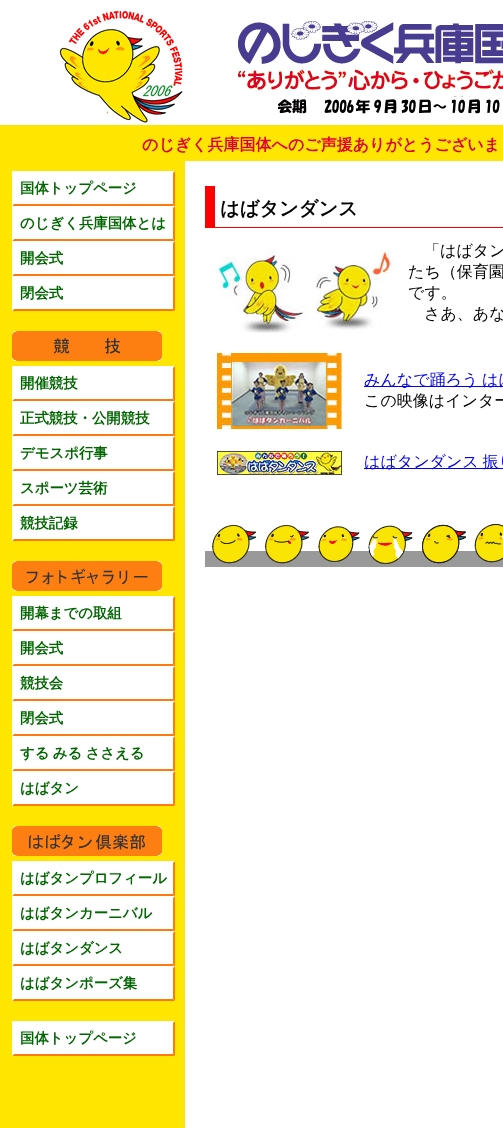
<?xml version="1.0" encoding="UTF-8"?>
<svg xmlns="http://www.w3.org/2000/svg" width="503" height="1128">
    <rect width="100%" height="100%" fill="#FFFFFF"/>
    <image x="59" y="11" width="444" height="112" href="img_01.png"/>
    <rect x="0" y="125" width="503" height="36" fill="#FEE600"/>
    <text x="142" y="150" font-family="WenQuanYi Zen Hei" font-size="16" font-weight="700" fill="#DF0032">のじぎく兵庫国体へのご声援ありがとうございま</text>
    <rect x="0" y="161" width="185" height="967" fill="#FEE600"/>
    <rect x="12" y="171" width="163" height="140" fill="#FFFFFF"/>
    <path d="M 175 171 V 206 L 173 204 V 173 Z" fill="#FE7912"/>
    <path d="M 175 206 H 12 L 14 204 H 173 Z" fill="#FE7912"/>
    <path d="M 12 206 V 171 L 14 173 V 204 Z" fill="#FFFFFF"/>
    <text x="20" y="193" font-family="WenQuanYi Zen Hei" font-size="14.4" font-weight="700" fill="#006600">国体トップページ</text>
    <path d="M 175 206 V 241 L 173 239 V 208 Z" fill="#FE7912"/>
    <path d="M 175 241 H 12 L 14 239 H 173 Z" fill="#FE7912"/>
    <path d="M 12 241 V 206 L 14 208 V 239 Z" fill="#FFFFFF"/>
    <text x="20" y="228" font-family="WenQuanYi Zen Hei" font-size="14.4" font-weight="700" fill="#006600">のじぎく兵庫国体とは</text>
    <path d="M 175 241 V 276 L 173 274 V 243 Z" fill="#FE7912"/>
    <path d="M 175 276 H 12 L 14 274 H 173 Z" fill="#FE7912"/>
    <path d="M 12 276 V 241 L 14 243 V 274 Z" fill="#FFFFFF"/>
    <text x="20" y="263" font-family="WenQuanYi Zen Hei" font-size="14.4" font-weight="700" fill="#006600">開会式</text>
    <path d="M 175 276 V 311 L 173 309 V 278 Z" fill="#FE7912"/>
    <path d="M 175 311 H 12 L 14 309 H 173 Z" fill="#FE7912"/>
    <path d="M 12 311 V 276 L 14 278 V 309 Z" fill="#FFFFFF"/>
    <text x="20" y="298" font-family="WenQuanYi Zen Hei" font-size="14.4" font-weight="700" fill="#006600">閉会式</text>
    <image x="12" y="331" width="150" height="30" href="img_02.png"/>
    <rect x="12" y="366" width="163" height="175" fill="#FFFFFF"/>
    <path d="M 175 366 V 401 L 173 399 V 368 Z" fill="#FE7912"/>
    <path d="M 175 401 H 12 L 14 399 H 173 Z" fill="#FE7912"/>
    <path d="M 12 401 V 366 L 14 368 V 399 Z" fill="#FFFFFF"/>
    <text x="20" y="388" font-family="WenQuanYi Zen Hei" font-size="14.4" font-weight="700" fill="#006600">開催競技</text>
    <path d="M 175 401 V 436 L 173 434 V 403 Z" fill="#FE7912"/>
    <path d="M 175 436 H 12 L 14 434 H 173 Z" fill="#FE7912"/>
    <path d="M 12 436 V 401 L 14 403 V 434 Z" fill="#FFFFFF"/>
    <text x="20" y="423" font-family="WenQuanYi Zen Hei" font-size="14.4" font-weight="700" fill="#006600">正式競技・公開競技</text>
    <path d="M 175 436 V 471 L 173 469 V 438 Z" fill="#FE7912"/>
    <path d="M 175 471 H 12 L 14 469 H 173 Z" fill="#FE7912"/>
    <path d="M 12 471 V 436 L 14 438 V 469 Z" fill="#FFFFFF"/>
    <text x="20" y="458" font-family="WenQuanYi Zen Hei" font-size="14.4" font-weight="700" fill="#006600">デモスポ行事</text>
    <path d="M 175 471 V 506 L 173 504 V 473 Z" fill="#FE7912"/>
    <path d="M 175 506 H 12 L 14 504 H 173 Z" fill="#FE7912"/>
    <path d="M 12 506 V 471 L 14 473 V 504 Z" fill="#FFFFFF"/>
    <text x="20" y="493" font-family="WenQuanYi Zen Hei" font-size="14.4" font-weight="700" fill="#006600">スポーツ芸術</text>
    <path d="M 175 506 V 541 L 173 539 V 508 Z" fill="#FE7912"/>
    <path d="M 175 541 H 12 L 14 539 H 173 Z" fill="#FE7912"/>
    <path d="M 12 541 V 506 L 14 508 V 539 Z" fill="#FFFFFF"/>
    <text x="20" y="528" font-family="WenQuanYi Zen Hei" font-size="14.4" font-weight="700" fill="#006600">競技記録</text>
    <image x="12" y="561" width="150" height="30" href="img_03.png"/>
    <rect x="12" y="596" width="163" height="210" fill="#FFFFFF"/>
    <path d="M 175 596 V 631 L 173 629 V 598 Z" fill="#FE7912"/>
    <path d="M 175 631 H 12 L 14 629 H 173 Z" fill="#FE7912"/>
    <path d="M 12 631 V 596 L 14 598 V 629 Z" fill="#FFFFFF"/>
    <text x="20" y="618" font-family="WenQuanYi Zen Hei" font-size="14.4" font-weight="700" fill="#006600">開幕までの取組</text>
    <path d="M 175 631 V 666 L 173 664 V 633 Z" fill="#FE7912"/>
    <path d="M 175 666 H 12 L 14 664 H 173 Z" fill="#FE7912"/>
    <path d="M 12 666 V 631 L 14 633 V 664 Z" fill="#FFFFFF"/>
    <text x="20" y="653" font-family="WenQuanYi Zen Hei" font-size="14.4" font-weight="700" fill="#006600">開会式</text>
    <path d="M 175 666 V 701 L 173 699 V 668 Z" fill="#FE7912"/>
    <path d="M 175 701 H 12 L 14 699 H 173 Z" fill="#FE7912"/>
    <path d="M 12 701 V 666 L 14 668 V 699 Z" fill="#FFFFFF"/>
    <text x="20" y="688" font-family="WenQuanYi Zen Hei" font-size="14.4" font-weight="700" fill="#006600">競技会</text>
    <path d="M 175 701 V 736 L 173 734 V 703 Z" fill="#FE7912"/>
    <path d="M 175 736 H 12 L 14 734 H 173 Z" fill="#FE7912"/>
    <path d="M 12 736 V 701 L 14 703 V 734 Z" fill="#FFFFFF"/>
    <text x="20" y="723" font-family="WenQuanYi Zen Hei" font-size="14.4" font-weight="700" fill="#006600">閉会式</text>
    <path d="M 175 736 V 771 L 173 769 V 738 Z" fill="#FE7912"/>
    <path d="M 175 771 H 12 L 14 769 H 173 Z" fill="#FE7912"/>
    <path d="M 12 771 V 736 L 14 738 V 769 Z" fill="#FFFFFF"/>
    <text x="20" y="758" word-spacing="-1" font-family="WenQuanYi Zen Hei" font-size="14.4" font-weight="700" fill="#006600">する みる ささえる</text>
    <path d="M 175 771 V 806 L 173 804 V 773 Z" fill="#FE7912"/>
    <path d="M 175 806 H 12 L 14 804 H 173 Z" fill="#FE7912"/>
    <path d="M 12 806 V 771 L 14 773 V 804 Z" fill="#FFFFFF"/>
    <text x="20" y="793" font-family="WenQuanYi Zen Hei" font-size="14.4" font-weight="700" fill="#006600">はばタン</text>
    <image x="12" y="826" width="150" height="30" href="img_04.png"/>
    <rect x="12" y="861" width="163" height="140" fill="#FFFFFF"/>
    <path d="M 175 861 V 896 L 173 894 V 863 Z" fill="#FE7912"/>
    <path d="M 175 896 H 12 L 14 894 H 173 Z" fill="#FE7912"/>
    <path d="M 12 896 V 861 L 14 863 V 894 Z" fill="#FFFFFF"/>
    <text x="20" y="883" font-family="WenQuanYi Zen Hei" font-size="14.4" font-weight="700" fill="#006600">はばタンプロフィール</text>
    <path d="M 175 896 V 931 L 173 929 V 898 Z" fill="#FE7912"/>
    <path d="M 175 931 H 12 L 14 929 H 173 Z" fill="#FE7912"/>
    <path d="M 12 931 V 896 L 14 898 V 929 Z" fill="#FFFFFF"/>
    <text x="20" y="918" font-family="WenQuanYi Zen Hei" font-size="14.4" font-weight="700" fill="#006600">はばタンカーニバル</text>
    <path d="M 175 931 V 966 L 173 964 V 933 Z" fill="#FE7912"/>
    <path d="M 175 966 H 12 L 14 964 H 173 Z" fill="#FE7912"/>
    <path d="M 12 966 V 931 L 14 933 V 964 Z" fill="#FFFFFF"/>
    <text x="20" y="953" font-family="WenQuanYi Zen Hei" font-size="14.4" font-weight="700" fill="#006600">はばタンダンス</text>
    <path d="M 175 966 V 1001 L 173 999 V 968 Z" fill="#FE7912"/>
    <path d="M 175 1001 H 12 L 14 999 H 173 Z" fill="#FE7912"/>
    <path d="M 12 1001 V 966 L 14 968 V 999 Z" fill="#FFFFFF"/>
    <text x="20" y="988" font-family="WenQuanYi Zen Hei" font-size="14.4" font-weight="700" fill="#006600">はばタンポーズ集</text>
    <rect x="12" y="1021" width="163" height="35" fill="#FFFFFF"/>
    <path d="M 175 1021 V 1056 L 173 1054 V 1023 Z" fill="#FE7912"/>
    <path d="M 175 1056 H 12 L 14 1054 H 173 Z" fill="#FE7912"/>
    <path d="M 12 1056 V 1021 L 14 1023 V 1054 Z" fill="#FFFFFF"/>
    <text x="20" y="1043" font-family="WenQuanYi Zen Hei" font-size="14.4" font-weight="700" fill="#006600">国体トップページ</text>
    <rect x="215" y="227" width="288" height="1" fill="#FF0000"/>
    <rect x="205" y="186" width="10" height="42" fill="#FF0000"/>
    <text x="220" y="215" font-family="WenQuanYi Zen Hei" font-size="19.25" font-weight="700" fill="#000000">はばタンダンス</text>
    <image x="213" y="249" width="184" height="84" href="img_05.png"/>
    <text x="424" y="256" font-family="WenQuanYi Zen Hei" font-size="16" font-weight="500" fill="#000000">「はばタン</text>
    <text font-family="WenQuanYi Zen Hei" font-size="16" font-weight="500" fill="#000000">
        <tspan x="408" y="277">たち（保育園</tspan>
        <tspan x="408" y="298">です。</tspan>
    </text>
    <text x="424" y="319" font-family="WenQuanYi Zen Hei" font-size="16" font-weight="500" fill="#000000">さあ、あな</text>
    <image x="217" y="353" width="125" height="76" href="img_06.png"/>
    <rect x="364" y="386" width="139" height="1" fill="#0000EE"/>
    <text x="364" y="385" word-spacing="-1" font-family="WenQuanYi Zen Hei" font-size="16" font-weight="500" fill="#0000EE">みんなで踊ろう はば</text>
    <text x="364" y="406" font-family="WenQuanYi Zen Hei" font-size="16" font-weight="500" fill="#000000">この映像はインター</text>
    <image x="217" y="451" width="125" height="24" href="img_07.png"/>
    <rect x="364" y="468" width="139" height="1" fill="#0000EE"/>
    <text x="364" y="467" word-spacing="-1" font-family="WenQuanYi Zen Hei" font-size="16" font-weight="500" fill="#0000EE">はばタンダンス 振り</text>
    <image x="205" y="524" width="298" height="43" href="img_08.png"/>
</svg>
